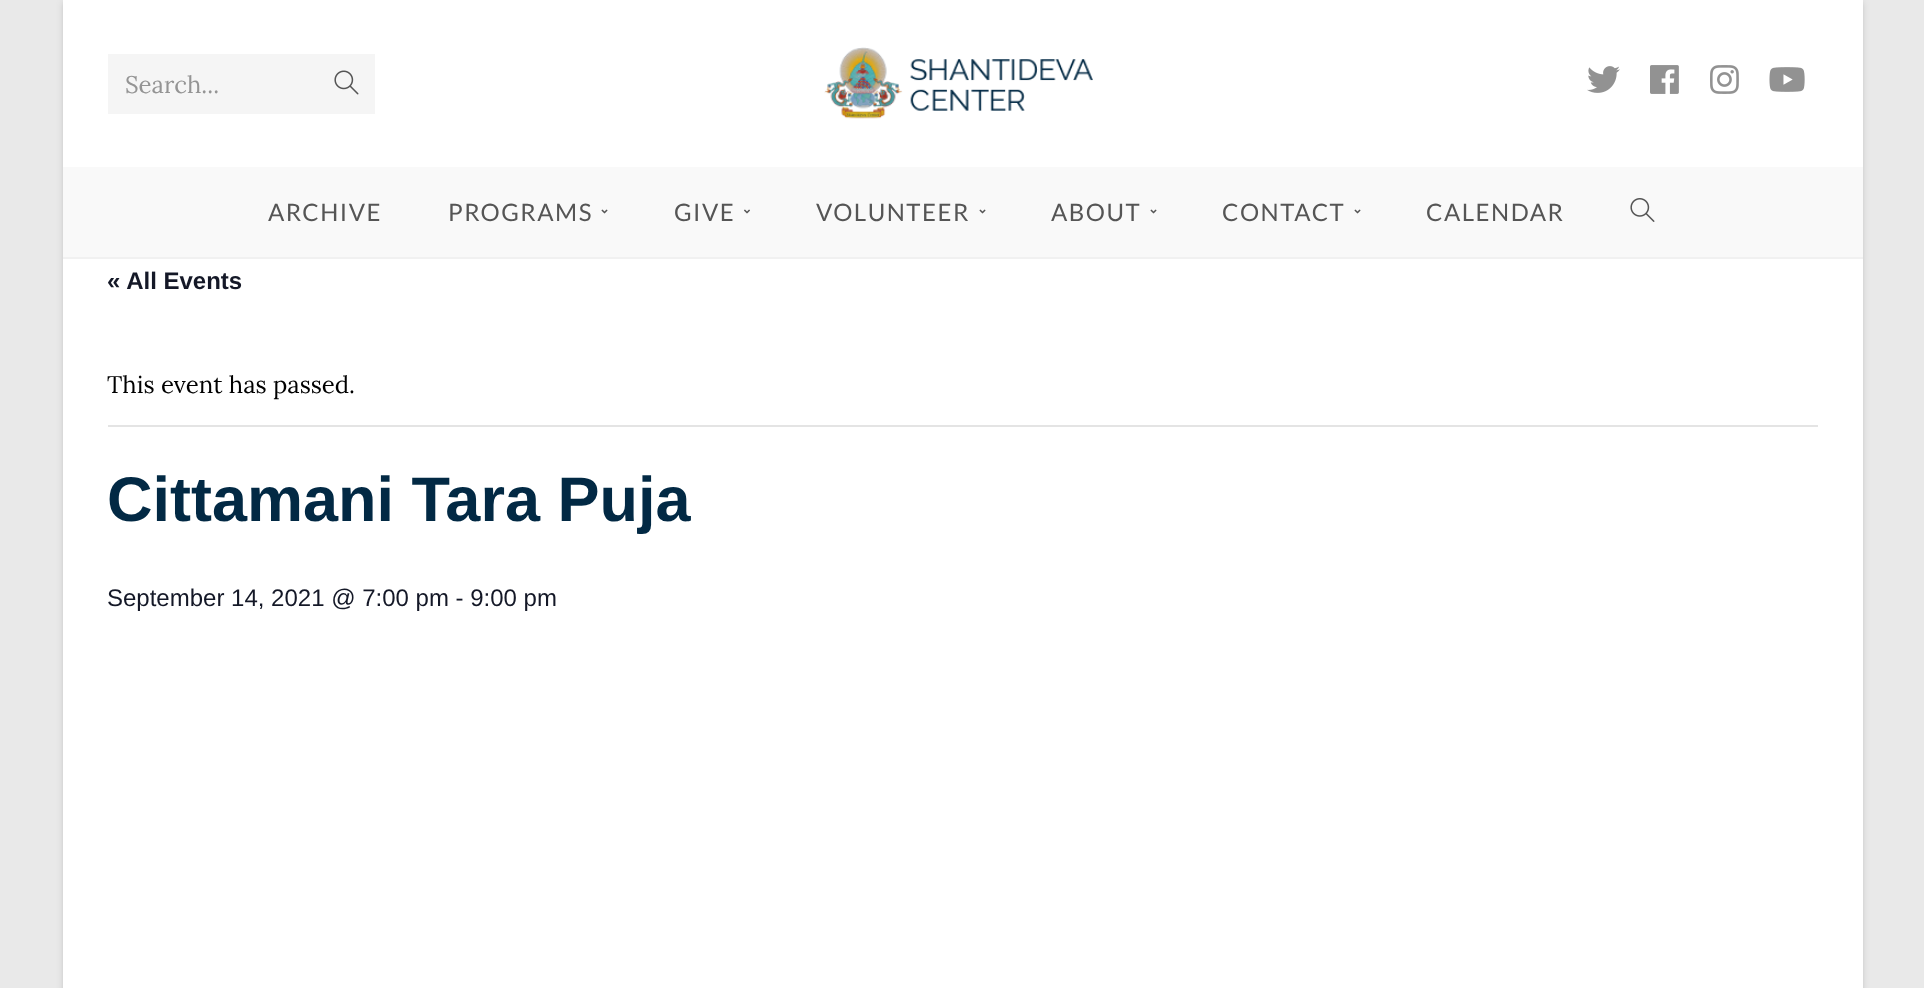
<?xml version="1.0" encoding="UTF-8"?>
<svg xmlns="http://www.w3.org/2000/svg" width="1924" height="988">
    <defs>
        <filter id="blur1" x="-50%" y="-200%" width="200%" height="500%"><feGaussianBlur stdDeviation="3"/></filter>
    </defs>
    <rect width="100%" height="100%" fill="#E9E9E9"/>
    <rect x="63" y="2" width="1800" height="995" fill="#000000" fill-opacity="0.15" filter="url(#blur1)"/>
    <rect x="63" y="0" width="1800" height="988" fill="#FFFFFF"/>
    <rect x="63" y="257" width="1800" height="2" fill="#F1F1F1"/>
    <rect x="108" y="54" width="267" height="60" fill="#F5F5F5"/>
    <text x="125" y="93" font-family="Lora" font-size="24" fill="#949494">Search...</text>
    <image x="334" y="70" width="25" height="25" href="img_01.png"/>
    <image x="824" y="47" width="269" height="72" href="img_02.png"/>
    <image x="1587" y="66" width="33" height="27" href="img_03.png"/>
    <image x="1650" y="65" width="29" height="29" href="img_04.png"/>
    <image x="1710" y="65" width="29" height="29" href="img_05.png"/>
    <image x="1769" y="67" width="36" height="25" href="img_06.png"/>
    <rect x="63" y="167" width="1800" height="90" fill="#F9F9F9"/>
    <text x="268" y="221" font-family="Lato" font-size="24" letter-spacing="1.5" fill="#555555">ARCHIVE</text>
    <text x="448" y="221" font-family="Lato" font-size="24" letter-spacing="1.5" fill="#555555">PROGRAMS</text>
    <image x="601" y="209" width="7" height="5" href="img_07.png"/>
    <text x="674" y="221" font-family="Lato" font-size="24" letter-spacing="1.5" fill="#555555">GIVE</text>
    <image x="744" y="209" width="6" height="5" href="img_08.png"/>
    <text x="816" y="221" font-family="Lato" font-size="24" letter-spacing="1.5" fill="#555555">VOLUNTEER</text>
    <image x="979" y="209" width="7" height="5" href="img_07.png"/>
    <text x="1051" y="221" font-family="Lato" font-size="24" letter-spacing="1.5" fill="#555555">ABOUT</text>
    <image x="1150" y="209" width="7" height="5" href="img_07.png"/>
    <text x="1222" y="221" font-family="Lato" font-size="24" letter-spacing="1.5" fill="#555555">CONTACT</text>
    <image x="1354" y="209" width="7" height="5" href="img_07.png"/>
    <text x="1426" y="221" font-family="Lato" font-size="24" letter-spacing="1.5" fill="#555555">CALENDAR</text>
    <image x="1630" y="198" width="25" height="24" href="img_09.png"/>
    <text x="107" y="289" font-family="Liberation Sans" font-size="24" font-weight="700" fill="#141827">« All Events</text>
    <rect x="108" y="425" width="1710" height="2" fill="#E4E4E4"/>
    <text x="107" y="393" font-family="Lora" font-size="24" fill="#000000">This event has passed.</text>
    <text x="107" y="521" font-family="Liberation Sans" font-size="63" font-weight="700" fill="#022944">Cittamani Tara Puja</text>
    <text x="107" y="606" font-family="Liberation Sans" font-size="24" fill="#141827">September 14, 2021 @ 7:00 pm - 9:00 pm</text>
</svg>
